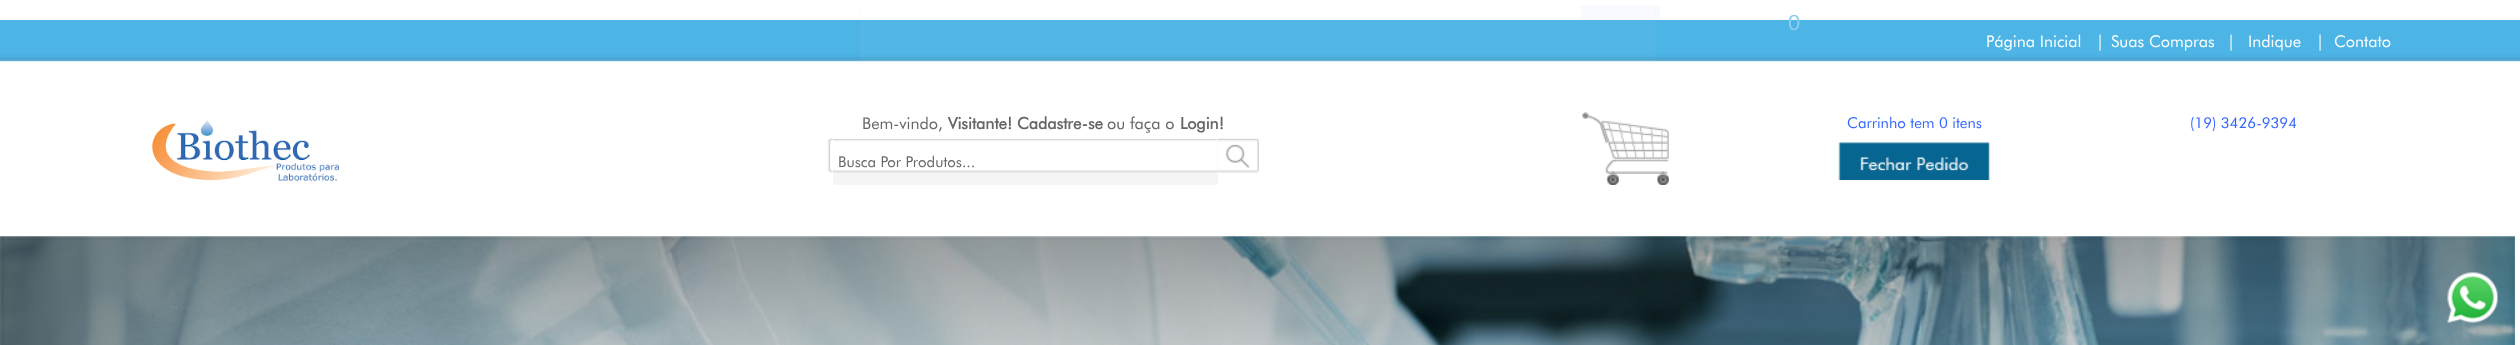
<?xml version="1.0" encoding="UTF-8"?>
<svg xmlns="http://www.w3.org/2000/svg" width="2520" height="345">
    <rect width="100%" height="100%" fill="#FFFFFF"/>
    <image x="0" y="20" width="2520" height="42" href="img_01.png"/>
    <rect x="860" y="20" width="796" height="41" fill="#F5F5F5" fill-opacity="0.03"/>
    <rect x="860.5" y="6.5" width="795" height="57" fill="none" stroke="#999999" stroke-opacity="0.03"/>
    <rect x="1581" y="6" width="79" height="14" fill="#3366FF" fill-opacity="0.03"/>
    <text x="1788" y="30" font-family="Liberation Sans" font-size="22" fill="#8CCDF0">0</text>
    <text x="1986" y="47" font-family="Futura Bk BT" font-size="16.25" fill="#FFFFFF">Página Inicial</text>
    <text x="2096" y="47" font-family="Futura Bk BT" font-size="16.25" fill="#FFFFFF">|</text>
    <text x="2111" y="47" font-family="Futura Bk BT" font-size="16.25" fill="#FFFFFF">Suas Compras</text>
    <text x="2227" y="47" font-family="Futura Bk BT" font-size="16.25" fill="#FFFFFF">|</text>
    <text x="2248" y="47" font-family="Futura Bk BT" font-size="16.25" fill="#FFFFFF">Indique</text>
    <text x="2316" y="47" font-family="Futura Bk BT" font-size="16.25" fill="#FFFFFF">|</text>
    <text x="2334" y="47" font-family="Futura Bk BT" font-size="16.25" fill="#FFFFFF">Contato</text>
    <image x="152" y="119" width="187" height="62" href="img_02.png"/>
    <text x="862" y="129" font-family="Futura Bk BT" font-size="16.25" fill="#666666">Bem-vindo,</text>
    <text x="948" y="129" font-family="Futura Bk BT" font-size="16.25" font-weight="700" fill="#666666">Visitante! Cadastre-se</text>
    <text x="1107" y="129" font-family="Futura Bk BT" font-size="16.25" fill="#666666">ou faça o</text>
    <text x="1180" y="129" font-family="Futura Bk BT" font-size="16.25" font-weight="700" fill="#666666">Login!</text>
    <image x="1582" y="112" width="87" height="73" href="img_03.png"/>
    <text x="1847" y="128" font-family="Futura Bk BT" font-size="15" fill="#3366FF">Carrinho tem 0 itens</text>
    <text x="2190" y="128" font-family="Futura Bk BT" font-size="15" fill="#3366FF">(19) 3426-9394</text>
    <image x="827" y="138" width="6" height="35" href="img_04.png"/>
    <rect x="833" y="139" width="385" height="46" rx="2.5" fill="#F5F5F5"/>
    <image x="833" y="139" width="385" height="34" href="img_05.png"/>
    <text x="838" y="167" font-family="Futura Bk BT" font-size="15" fill="#666666">Busca Por Produtos...</text>
    <image x="1217" y="138" width="42" height="35" href="img_06.png"/>
    <image x="1838" y="142" width="152" height="38" href="img_07.png"/>
    <image x="0" y="236" width="2515" height="109" href="img_08.png"/>
    <image x="2447" y="272" width="51" height="51" href="img_09.png"/>
</svg>
